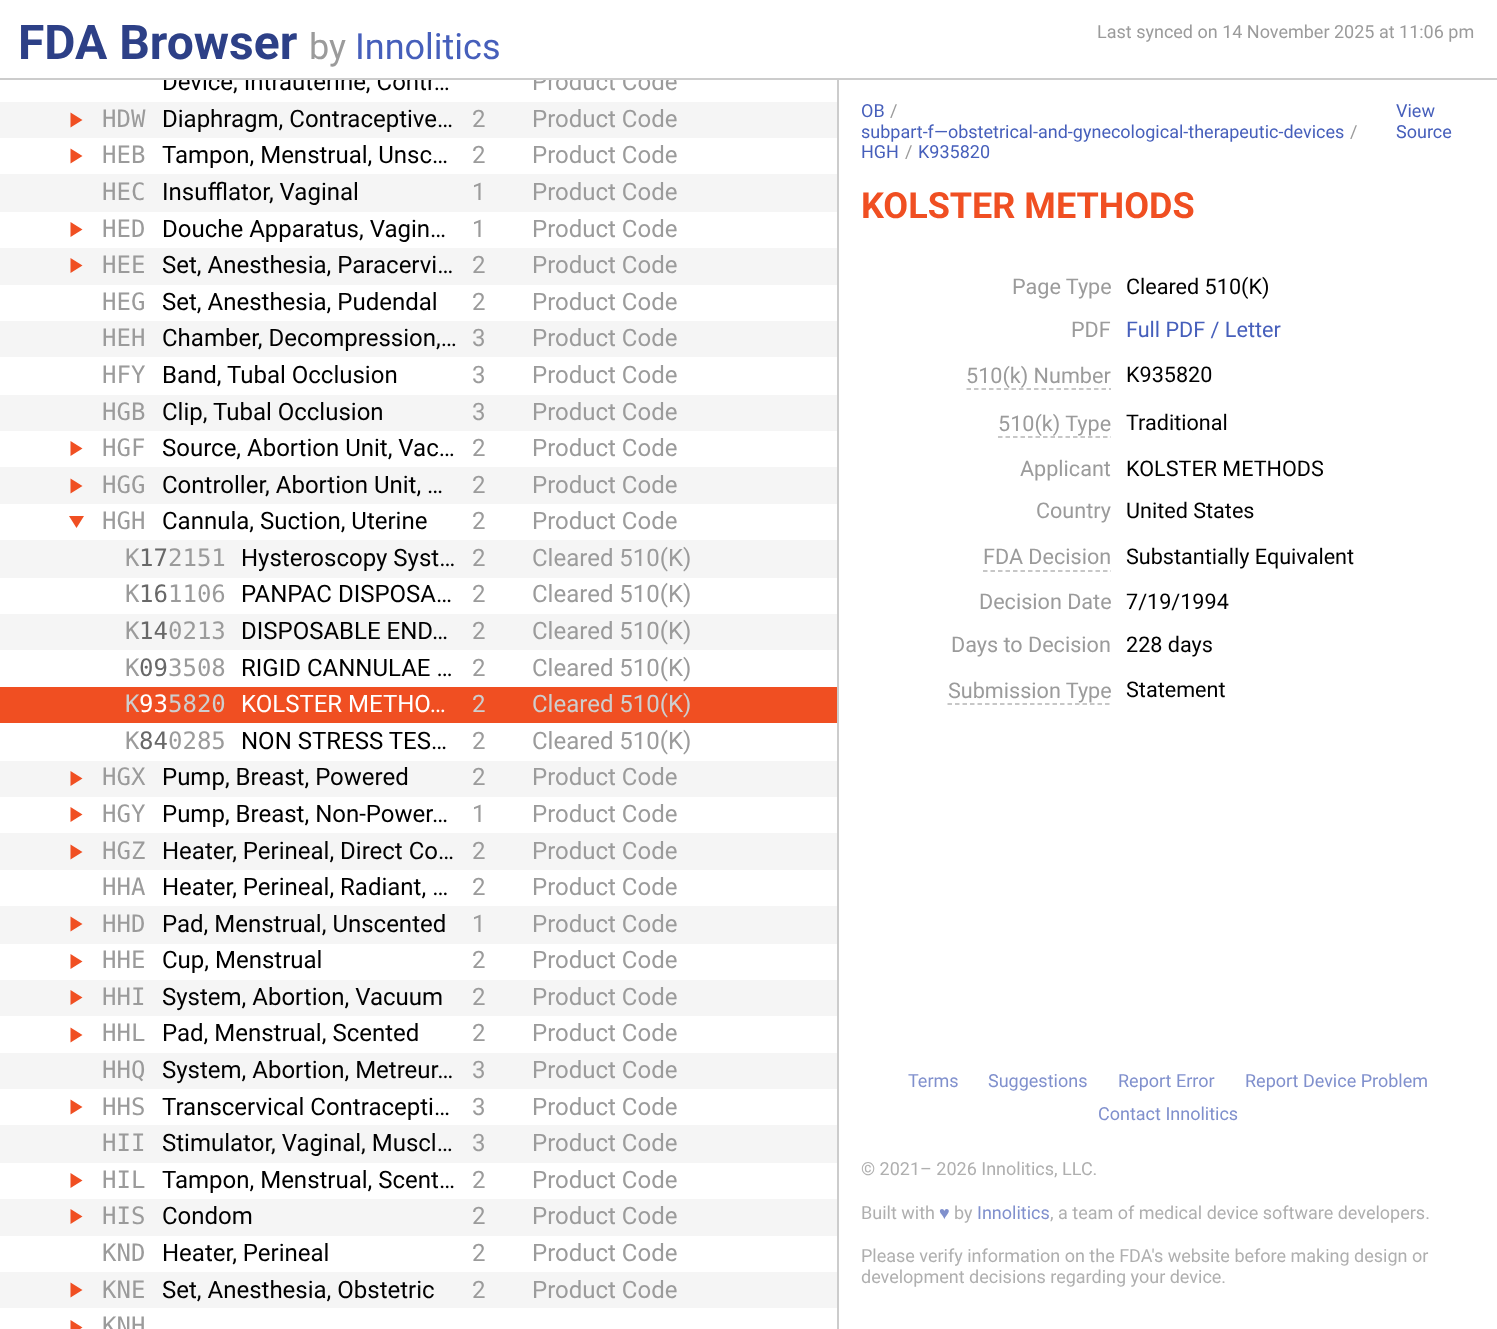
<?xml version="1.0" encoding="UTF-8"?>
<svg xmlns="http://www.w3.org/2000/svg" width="1497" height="1329">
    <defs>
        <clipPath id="clip1"><rect x="155" y="80" width="310" height="18"/></clipPath>
        <clipPath id="clip2"><rect x="465" y="80" width="365" height="18"/></clipPath>
    </defs>
    <rect width="100%" height="100%" fill="#FFFFFF"/>
    <rect x="0" y="78" width="1497" height="2" fill="#CCCCCC"/>
    <text x="18" y="59" font-family="Roboto" font-size="48" font-weight="700" fill="#2D4087">FDA Browser</text>
    <text x="309" y="59" font-family="Roboto" font-size="36" fill="#9B9B9B">by</text>
    <text x="355" y="59" font-family="Roboto" font-size="36" fill="#465FBB">Innolitics</text>
    <rect x="837" y="80" width="2" height="1249" fill="#CCCCCC"/>
    <rect x="0" y="102" width="837" height="1206" fill="#F5F5F5"/>
    <g clip-path="url(#clip1)">
        <text x="162" y="90" font-family="Roboto" font-size="24" fill="#000000">Device, Intrauterine, Contr…</text>
    </g>
    <g clip-path="url(#clip2)">
        <text x="532" y="90" font-family="Roboto" font-size="24" fill="#9B9B9B">Product Code</text>
    </g>
    <path d="M 70.5 127.5 V 112.5 L 82.5 120 Z" fill="#F04F22"/>
    <text x="102" y="127" font-family="DejaVu Sans Mono" font-size="24" fill="#9B9B9B">HDW</text>
    <text x="162" y="127" font-family="Roboto" font-size="24" fill="#000000">Diaphragm, Contraceptive…</text>
    <text x="472" y="127" font-family="Roboto" font-size="24" fill="#9B9B9B">2</text>
    <text x="532" y="127" font-family="Roboto" font-size="24" fill="#9B9B9B">Product Code</text>
    <rect x="0" y="138" width="837" height="36" fill="#FFFFFF"/>
    <path d="M 70.5 163.5 V 148.5 L 82.5 156 Z" fill="#F04F22"/>
    <text x="102" y="163" font-family="DejaVu Sans Mono" font-size="24" fill="#9B9B9B">HEB</text>
    <text x="162" y="163" font-family="Roboto" font-size="24" fill="#000000">Tampon, Menstrual, Unsc…</text>
    <text x="472" y="163" font-family="Roboto" font-size="24" fill="#9B9B9B">2</text>
    <text x="532" y="163" font-family="Roboto" font-size="24" fill="#9B9B9B">Product Code</text>
    <text x="102" y="200" font-family="DejaVu Sans Mono" font-size="24" fill="#9B9B9B">HEC</text>
    <text x="162" y="200" font-family="Roboto" font-size="24" fill="#000000">Insufflator, Vaginal</text>
    <text x="472" y="200" font-family="Roboto" font-size="24" fill="#9B9B9B">1</text>
    <text x="532" y="200" font-family="Roboto" font-size="24" fill="#9B9B9B">Product Code</text>
    <rect x="0" y="212" width="837" height="36" fill="#FFFFFF"/>
    <path d="M 70.5 237 V 222 L 82.5 229.5 Z" fill="#F04F22"/>
    <text x="102" y="237" font-family="DejaVu Sans Mono" font-size="24" fill="#9B9B9B">HED</text>
    <text x="162" y="237" font-family="Roboto" font-size="24" fill="#000000">Douche Apparatus, Vagin…</text>
    <text x="472" y="237" font-family="Roboto" font-size="24" fill="#9B9B9B">1</text>
    <text x="532" y="237" font-family="Roboto" font-size="24" fill="#9B9B9B">Product Code</text>
    <path d="M 70.5 273 V 258 L 82.5 265.5 Z" fill="#F04F22"/>
    <text x="102" y="273" font-family="DejaVu Sans Mono" font-size="24" fill="#9B9B9B">HEE</text>
    <text x="162" y="273" font-family="Roboto" font-size="24" fill="#000000">Set, Anesthesia, Paracervi…</text>
    <text x="472" y="273" font-family="Roboto" font-size="24" fill="#9B9B9B">2</text>
    <text x="532" y="273" font-family="Roboto" font-size="24" fill="#9B9B9B">Product Code</text>
    <rect x="0" y="285" width="837" height="36" fill="#FFFFFF"/>
    <text x="102" y="310" font-family="DejaVu Sans Mono" font-size="24" fill="#9B9B9B">HEG</text>
    <text x="162" y="310" font-family="Roboto" font-size="24" fill="#000000">Set, Anesthesia, Pudendal</text>
    <text x="472" y="310" font-family="Roboto" font-size="24" fill="#9B9B9B">2</text>
    <text x="532" y="310" font-family="Roboto" font-size="24" fill="#9B9B9B">Product Code</text>
    <text x="102" y="346" font-family="DejaVu Sans Mono" font-size="24" fill="#9B9B9B">HEH</text>
    <text x="162" y="346" font-family="Roboto" font-size="24" fill="#000000">Chamber, Decompression,…</text>
    <text x="472" y="346" font-family="Roboto" font-size="24" fill="#9B9B9B">3</text>
    <text x="532" y="346" font-family="Roboto" font-size="24" fill="#9B9B9B">Product Code</text>
    <rect x="0" y="357" width="837" height="38" fill="#FFFFFF"/>
    <text x="102" y="383" font-family="DejaVu Sans Mono" font-size="24" fill="#9B9B9B">HFY</text>
    <text x="162" y="383" font-family="Roboto" font-size="24" fill="#000000">Band, Tubal Occlusion</text>
    <text x="472" y="383" font-family="Roboto" font-size="24" fill="#9B9B9B">3</text>
    <text x="532" y="383" font-family="Roboto" font-size="24" fill="#9B9B9B">Product Code</text>
    <text x="102" y="420" font-family="DejaVu Sans Mono" font-size="24" fill="#9B9B9B">HGB</text>
    <text x="162" y="420" font-family="Roboto" font-size="24" fill="#000000">Clip, Tubal Occlusion</text>
    <text x="472" y="420" font-family="Roboto" font-size="24" fill="#9B9B9B">3</text>
    <text x="532" y="420" font-family="Roboto" font-size="24" fill="#9B9B9B">Product Code</text>
    <rect x="0" y="431" width="837" height="36" fill="#FFFFFF"/>
    <path d="M 70.5 456 V 441 L 82.5 448.5 Z" fill="#F04F22"/>
    <text x="102" y="456" font-family="DejaVu Sans Mono" font-size="24" fill="#9B9B9B">HGF</text>
    <text x="162" y="456" font-family="Roboto" font-size="24" fill="#000000">Source, Abortion Unit, Vac…</text>
    <text x="472" y="456" font-family="Roboto" font-size="24" fill="#9B9B9B">2</text>
    <text x="532" y="456" font-family="Roboto" font-size="24" fill="#9B9B9B">Product Code</text>
    <path d="M 70.5 493.5 V 478.5 L 82.5 486 Z" fill="#F04F22"/>
    <text x="102" y="493" font-family="DejaVu Sans Mono" font-size="24" fill="#9B9B9B">HGG</text>
    <text x="162" y="493" font-family="Roboto" font-size="24" fill="#000000">Controller, Abortion Unit, …</text>
    <text x="472" y="493" font-family="Roboto" font-size="24" fill="#9B9B9B">2</text>
    <text x="532" y="493" font-family="Roboto" font-size="24" fill="#9B9B9B">Product Code</text>
    <rect x="0" y="504" width="837" height="257" fill="#FFFFFF"/>
    <path d="M 69 516 H 84 L 76.5 528 Z" fill="#F04F22"/>
    <text x="102" y="529" font-family="DejaVu Sans Mono" font-size="24" fill="#9B9B9B">HGH</text>
    <text x="162" y="529" font-family="Roboto" font-size="24" fill="#000000">Cannula, Suction, Uterine</text>
    <text x="472" y="529" font-family="Roboto" font-size="24" fill="#9B9B9B">2</text>
    <text x="532" y="529" font-family="Roboto" font-size="24" fill="#9B9B9B">Product Code</text>
    <rect x="0" y="540" width="837" height="38" fill="#F5F5F5"/>
    <text x="125" y="566" font-family="DejaVu Sans Mono" font-size="24" fill="#9B9B9B">K</text>
    <text x="139" y="566" font-family="DejaVu Sans Mono" font-size="24" fill="#686868">17</text>
    <text x="168" y="566" font-family="DejaVu Sans Mono" font-size="24" fill="#9B9B9B">2151</text>
    <text x="241" y="566" font-family="Roboto" font-size="24" fill="#000000">Hysteroscopy Syst…</text>
    <text x="472" y="566" font-family="Roboto" font-size="24" fill="#9B9B9B">2</text>
    <text x="532" y="566" font-family="Roboto" font-size="24" fill="#9B9B9B">Cleared 510(K)</text>
    <text x="125" y="602" font-family="DejaVu Sans Mono" font-size="24" fill="#9B9B9B">K</text>
    <text x="139" y="602" font-family="DejaVu Sans Mono" font-size="24" fill="#686868">16</text>
    <text x="168" y="602" font-family="DejaVu Sans Mono" font-size="24" fill="#9B9B9B">1106</text>
    <text x="241" y="602" font-family="Roboto" font-size="24" fill="#000000">PANPAC DISPOSA…</text>
    <text x="472" y="602" font-family="Roboto" font-size="24" fill="#9B9B9B">2</text>
    <text x="532" y="602" font-family="Roboto" font-size="24" fill="#9B9B9B">Cleared 510(K)</text>
    <rect x="0" y="614" width="837" height="36" fill="#F5F5F5"/>
    <text x="125" y="639" font-family="DejaVu Sans Mono" font-size="24" fill="#9B9B9B">K</text>
    <text x="139" y="639" font-family="DejaVu Sans Mono" font-size="24" fill="#686868">14</text>
    <text x="168" y="639" font-family="DejaVu Sans Mono" font-size="24" fill="#9B9B9B">0213</text>
    <text x="241" y="639" font-family="Roboto" font-size="24" fill="#000000">DISPOSABLE END…</text>
    <text x="472" y="639" font-family="Roboto" font-size="24" fill="#9B9B9B">2</text>
    <text x="532" y="639" font-family="Roboto" font-size="24" fill="#9B9B9B">Cleared 510(K)</text>
    <text x="125" y="676" font-family="DejaVu Sans Mono" font-size="24" fill="#9B9B9B">K</text>
    <text x="139" y="676" font-family="DejaVu Sans Mono" font-size="24" fill="#686868">09</text>
    <text x="168" y="676" font-family="DejaVu Sans Mono" font-size="24" fill="#9B9B9B">3508</text>
    <text x="241" y="676" font-family="Roboto" font-size="24" fill="#000000">RIGID CANNULAE …</text>
    <text x="472" y="676" font-family="Roboto" font-size="24" fill="#9B9B9B">2</text>
    <text x="532" y="676" font-family="Roboto" font-size="24" fill="#9B9B9B">Cleared 510(K)</text>
    <rect x="0" y="687" width="837" height="36" fill="#F04F22"/>
    <text x="125" y="712" font-family="DejaVu Sans Mono" font-size="24" fill="#CECECE">K</text>
    <text x="139" y="712" font-family="DejaVu Sans Mono" font-size="24" fill="#FFFFFF">93</text>
    <text x="168" y="712" font-family="DejaVu Sans Mono" font-size="24" fill="#CECECE">5820</text>
    <text x="241" y="712" font-family="Roboto" font-size="24" fill="#FFFFFF">KOLSTER METHO…</text>
    <text x="472" y="712" font-family="Roboto" font-size="24" fill="#CECECE">2</text>
    <text x="532" y="712" font-family="Roboto" font-size="24" fill="#CECECE">Cleared 510(K)</text>
    <text x="125" y="749" font-family="DejaVu Sans Mono" font-size="24" fill="#9B9B9B">K</text>
    <text x="139" y="749" font-family="DejaVu Sans Mono" font-size="24" fill="#686868">84</text>
    <text x="168" y="749" font-family="DejaVu Sans Mono" font-size="24" fill="#9B9B9B">0285</text>
    <text x="241" y="749" font-family="Roboto" font-size="24" fill="#000000">NON STRESS TES…</text>
    <text x="472" y="749" font-family="Roboto" font-size="24" fill="#9B9B9B">2</text>
    <text x="532" y="749" font-family="Roboto" font-size="24" fill="#9B9B9B">Cleared 510(K)</text>
    <path d="M 70.5 786 V 771 L 82.5 778.5 Z" fill="#F04F22"/>
    <text x="102" y="785" font-family="DejaVu Sans Mono" font-size="24" fill="#9B9B9B">HGX</text>
    <text x="162" y="785" font-family="Roboto" font-size="24" fill="#000000">Pump, Breast, Powered</text>
    <text x="472" y="785" font-family="Roboto" font-size="24" fill="#9B9B9B">2</text>
    <text x="532" y="785" font-family="Roboto" font-size="24" fill="#9B9B9B">Product Code</text>
    <rect x="0" y="797" width="837" height="36" fill="#FFFFFF"/>
    <path d="M 70.5 822 V 807 L 82.5 814.5 Z" fill="#F04F22"/>
    <text x="102" y="822" font-family="DejaVu Sans Mono" font-size="24" fill="#9B9B9B">HGY</text>
    <text x="162" y="822" font-family="Roboto" font-size="24" fill="#000000">Pump, Breast, Non-Power…</text>
    <text x="472" y="822" font-family="Roboto" font-size="24" fill="#9B9B9B">1</text>
    <text x="532" y="822" font-family="Roboto" font-size="24" fill="#9B9B9B">Product Code</text>
    <path d="M 70.5 859.5 V 844.5 L 82.5 852 Z" fill="#F04F22"/>
    <text x="102" y="859" font-family="DejaVu Sans Mono" font-size="24" fill="#9B9B9B">HGZ</text>
    <text x="162" y="859" font-family="Roboto" font-size="24" fill="#000000">Heater, Perineal, Direct Co…</text>
    <text x="472" y="859" font-family="Roboto" font-size="24" fill="#9B9B9B">2</text>
    <text x="532" y="859" font-family="Roboto" font-size="24" fill="#9B9B9B">Product Code</text>
    <rect x="0" y="870" width="837" height="36" fill="#FFFFFF"/>
    <text x="102" y="895" font-family="DejaVu Sans Mono" font-size="24" fill="#9B9B9B">HHA</text>
    <text x="162" y="895" font-family="Roboto" font-size="24" fill="#000000">Heater, Perineal, Radiant, …</text>
    <text x="472" y="895" font-family="Roboto" font-size="24" fill="#9B9B9B">2</text>
    <text x="532" y="895" font-family="Roboto" font-size="24" fill="#9B9B9B">Product Code</text>
    <path d="M 70.5 931.5 V 916.5 L 82.5 924 Z" fill="#F04F22"/>
    <text x="102" y="932" font-family="DejaVu Sans Mono" font-size="24" fill="#9B9B9B">HHD</text>
    <text x="162" y="932" font-family="Roboto" font-size="24" fill="#000000">Pad, Menstrual, Unscented</text>
    <text x="472" y="932" font-family="Roboto" font-size="24" fill="#9B9B9B">1</text>
    <text x="532" y="932" font-family="Roboto" font-size="24" fill="#9B9B9B">Product Code</text>
    <rect x="0" y="944" width="837" height="36" fill="#FFFFFF"/>
    <path d="M 70.5 969 V 954 L 82.5 961.5 Z" fill="#F04F22"/>
    <text x="102" y="968" font-family="DejaVu Sans Mono" font-size="24" fill="#9B9B9B">HHE</text>
    <text x="162" y="968" font-family="Roboto" font-size="24" fill="#000000">Cup, Menstrual</text>
    <text x="472" y="968" font-family="Roboto" font-size="24" fill="#9B9B9B">2</text>
    <text x="532" y="968" font-family="Roboto" font-size="24" fill="#9B9B9B">Product Code</text>
    <path d="M 70.5 1005 V 990 L 82.5 997.5 Z" fill="#F04F22"/>
    <text x="102" y="1005" font-family="DejaVu Sans Mono" font-size="24" fill="#9B9B9B">HHI</text>
    <text x="162" y="1005" font-family="Roboto" font-size="24" fill="#000000">System, Abortion, Vacuum</text>
    <text x="472" y="1005" font-family="Roboto" font-size="24" fill="#9B9B9B">2</text>
    <text x="532" y="1005" font-family="Roboto" font-size="24" fill="#9B9B9B">Product Code</text>
    <rect x="0" y="1016" width="837" height="37" fill="#FFFFFF"/>
    <path d="M 70.5 1042.5 V 1027.5 L 82.5 1035 Z" fill="#F04F22"/>
    <text x="102" y="1041" font-family="DejaVu Sans Mono" font-size="24" fill="#9B9B9B">HHL</text>
    <text x="162" y="1041" font-family="Roboto" font-size="24" fill="#000000">Pad, Menstrual, Scented</text>
    <text x="472" y="1041" font-family="Roboto" font-size="24" fill="#9B9B9B">2</text>
    <text x="532" y="1041" font-family="Roboto" font-size="24" fill="#9B9B9B">Product Code</text>
    <text x="102" y="1078" font-family="DejaVu Sans Mono" font-size="24" fill="#9B9B9B">HHQ</text>
    <text x="162" y="1078" font-family="Roboto" font-size="24" fill="#000000">System, Abortion, Metreur…</text>
    <text x="472" y="1078" font-family="Roboto" font-size="24" fill="#9B9B9B">3</text>
    <text x="532" y="1078" font-family="Roboto" font-size="24" fill="#9B9B9B">Product Code</text>
    <rect x="0" y="1089" width="837" height="36" fill="#FFFFFF"/>
    <path d="M 70.5 1114.5 V 1099.5 L 82.5 1107 Z" fill="#F04F22"/>
    <text x="102" y="1115" font-family="DejaVu Sans Mono" font-size="24" fill="#9B9B9B">HHS</text>
    <text x="162" y="1115" font-family="Roboto" font-size="24" fill="#000000">Transcervical Contracepti…</text>
    <text x="472" y="1115" font-family="Roboto" font-size="24" fill="#9B9B9B">3</text>
    <text x="532" y="1115" font-family="Roboto" font-size="24" fill="#9B9B9B">Product Code</text>
    <text x="102" y="1151" font-family="DejaVu Sans Mono" font-size="24" fill="#9B9B9B">HII</text>
    <text x="162" y="1151" font-family="Roboto" font-size="24" fill="#000000">Stimulator, Vaginal, Muscl…</text>
    <text x="472" y="1151" font-family="Roboto" font-size="24" fill="#9B9B9B">3</text>
    <text x="532" y="1151" font-family="Roboto" font-size="24" fill="#9B9B9B">Product Code</text>
    <rect x="0" y="1163" width="837" height="36" fill="#FFFFFF"/>
    <path d="M 70.5 1188 V 1173 L 82.5 1180.5 Z" fill="#F04F22"/>
    <text x="102" y="1188" font-family="DejaVu Sans Mono" font-size="24" fill="#9B9B9B">HIL</text>
    <text x="162" y="1188" font-family="Roboto" font-size="24" fill="#000000">Tampon, Menstrual, Scent…</text>
    <text x="472" y="1188" font-family="Roboto" font-size="24" fill="#9B9B9B">2</text>
    <text x="532" y="1188" font-family="Roboto" font-size="24" fill="#9B9B9B">Product Code</text>
    <path d="M 70.5 1224 V 1209 L 82.5 1216.5 Z" fill="#F04F22"/>
    <text x="102" y="1224" font-family="DejaVu Sans Mono" font-size="24" fill="#9B9B9B">HIS</text>
    <text x="162" y="1224" font-family="Roboto" font-size="24" fill="#000000">Condom</text>
    <text x="472" y="1224" font-family="Roboto" font-size="24" fill="#9B9B9B">2</text>
    <text x="532" y="1224" font-family="Roboto" font-size="24" fill="#9B9B9B">Product Code</text>
    <rect x="0" y="1236" width="837" height="36" fill="#FFFFFF"/>
    <text x="102" y="1261" font-family="DejaVu Sans Mono" font-size="24" fill="#9B9B9B">KND</text>
    <text x="162" y="1261" font-family="Roboto" font-size="24" fill="#000000">Heater, Perineal</text>
    <text x="472" y="1261" font-family="Roboto" font-size="24" fill="#9B9B9B">2</text>
    <text x="532" y="1261" font-family="Roboto" font-size="24" fill="#9B9B9B">Product Code</text>
    <path d="M 70.5 1297.5 V 1282.5 L 82.5 1290 Z" fill="#F04F22"/>
    <text x="102" y="1298" font-family="DejaVu Sans Mono" font-size="24" fill="#9B9B9B">KNE</text>
    <text x="162" y="1298" font-family="Roboto" font-size="24" fill="#000000">Set, Anesthesia, Obstetric</text>
    <text x="472" y="1298" font-family="Roboto" font-size="24" fill="#9B9B9B">2</text>
    <text x="532" y="1298" font-family="Roboto" font-size="24" fill="#9B9B9B">Product Code</text>
    <path d="M 70.5 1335 V 1320 L 82.5 1327.5 Z" fill="#F04F22"/>
    <text x="102" y="1334" font-family="DejaVu Sans Mono" font-size="24" fill="#9B9B9B">KNH</text>
    <text x="1097" y="38" font-family="Roboto" font-size="18" fill="#9B9B9B">Last synced on 14 November 2025 at 11:06 pm</text>
    <text x="861" y="117" font-family="Roboto" font-size="18" fill="#465FBB">OB</text>
    <text x="890" y="117" font-family="Roboto" font-size="18" fill="#9B9B9B">/</text>
    <text x="861" y="138" font-family="Roboto" font-size="18" fill="#465FBB">subpart-f—obstetrical-and-gynecological-therapeutic-devices</text>
    <text x="1350" y="138" font-family="Roboto" font-size="18" fill="#9B9B9B">/</text>
    <text x="861" y="158" font-family="Roboto" font-size="18" fill="#465FBB">HGH</text>
    <text x="905" y="158" font-family="Roboto" font-size="18" fill="#9B9B9B">/</text>
    <text x="918" y="158" font-family="Roboto" font-size="18" fill="#465FBB">K935820</text>
    <text font-family="Roboto" font-size="18" fill="#465FBB">
        <tspan x="1396" y="117">View</tspan>
        <tspan x="1396" y="138">Source</tspan>
    </text>
    <text x="861" y="218" font-family="Roboto" font-size="36" font-weight="700" fill="#F04F22">KOLSTER METHODS</text>
    <text x="1012" y="294" font-family="Roboto" font-size="21.6" fill="#9B9B9B">Page Type</text>
    <text x="1126" y="294" font-family="Roboto" font-size="21.6" fill="#000000">Cleared 510(K)</text>
    <text x="1071" y="337" font-family="Roboto" font-size="21.6" fill="#9B9B9B">PDF</text>
    <text x="1126" y="337" font-family="Roboto" font-size="21.6" fill="#465FBB">Full PDF / Letter</text>
    <text x="966" y="383" font-family="Roboto" font-size="21.6" fill="#9B9B9B">510(k) Number</text>
    <path d="M 966.5 389 H 1111" fill="none" stroke="#B5B5B5" stroke-width="1.5" stroke-dasharray="4.5 3"/>
    <text x="1126" y="382" font-family="Roboto" font-size="21.6" fill="#000000">K935820</text>
    <text x="998" y="431" font-family="Roboto" font-size="21.6" fill="#9B9B9B">510(k) Type</text>
    <path d="M 998 437 H 1111" fill="none" stroke="#B5B5B5" stroke-width="1.5" stroke-dasharray="4.5 3"/>
    <text x="1126" y="430" font-family="Roboto" font-size="21.6" fill="#000000">Traditional</text>
    <text x="1020" y="476" font-family="Roboto" font-size="21.6" fill="#9B9B9B">Applicant</text>
    <text x="1126" y="476" font-family="Roboto" font-size="21.6" fill="#000000">KOLSTER METHODS</text>
    <text x="1036" y="518" font-family="Roboto" font-size="21.6" fill="#9B9B9B">Country</text>
    <text x="1126" y="518" font-family="Roboto" font-size="21.6" fill="#000000">United States</text>
    <text x="983" y="564" font-family="Roboto" font-size="21.6" fill="#9B9B9B">FDA Decision</text>
    <path d="M 983 571 H 1111" fill="none" stroke="#B5B5B5" stroke-width="1.5" stroke-dasharray="4.5 3"/>
    <text x="1126" y="564" font-family="Roboto" font-size="21.6" fill="#000000">Substantially Equivalent</text>
    <text x="979" y="609" font-family="Roboto" font-size="21.6" fill="#9B9B9B">Decision Date</text>
    <text x="1126" y="609" font-family="Roboto" font-size="21.6" fill="#000000">7/19/1994</text>
    <text x="951" y="652" font-family="Roboto" font-size="21.6" fill="#9B9B9B">Days to Decision</text>
    <text x="1126" y="652" font-family="Roboto" font-size="21.6" fill="#000000">228 days</text>
    <text x="948" y="698" font-family="Roboto" font-size="21.6" fill="#9B9B9B">Submission Type</text>
    <path d="M 947.5 704 H 1111" fill="none" stroke="#B5B5B5" stroke-width="1.5" stroke-dasharray="4.5 3"/>
    <text x="1126" y="697" font-family="Roboto" font-size="21.6" fill="#000000">Statement</text>
    <text x="908" y="1087" font-family="Roboto" font-size="18" fill="#8090CD">Terms</text>
    <text x="988" y="1087" font-family="Roboto" font-size="18" fill="#8090CD">Suggestions</text>
    <text x="1118" y="1087" font-family="Roboto" font-size="18" fill="#8090CD">Report Error</text>
    <text x="1245" y="1087" font-family="Roboto" font-size="18" fill="#8090CD">Report Device Problem</text>
    <text x="1098" y="1120" font-family="Roboto" font-size="18" fill="#8090CD">Contact Innolitics</text>
    <text x="861" y="1175" font-family="Roboto" font-size="18" fill="#AFAFAF">© 2021– 2026 Innolitics, LLC.</text>
    <text x="861" y="1219" font-family="Roboto" font-size="18" fill="#AFAFAF">Built with</text>
    <text x="939" y="1219" font-family="Liberation Sans" font-size="18" fill="#8090CD">♥</text>
    <text x="954" y="1219" font-family="Roboto" font-size="18" fill="#AFAFAF">by</text>
    <text x="977" y="1219" font-family="Roboto" font-size="18" fill="#8090CD">Innolitics</text>
    <text x="1050" y="1219" font-family="Roboto" font-size="18" fill="#AFAFAF">, a team of medical device software developers.</text>
    <text font-family="Roboto" font-size="18" fill="#AFAFAF">
        <tspan x="861" y="1262">Please verify information on the FDA's website before making design or</tspan>
        <tspan x="861" y="1283">development decisions regarding your device.</tspan>
    </text>
</svg>
